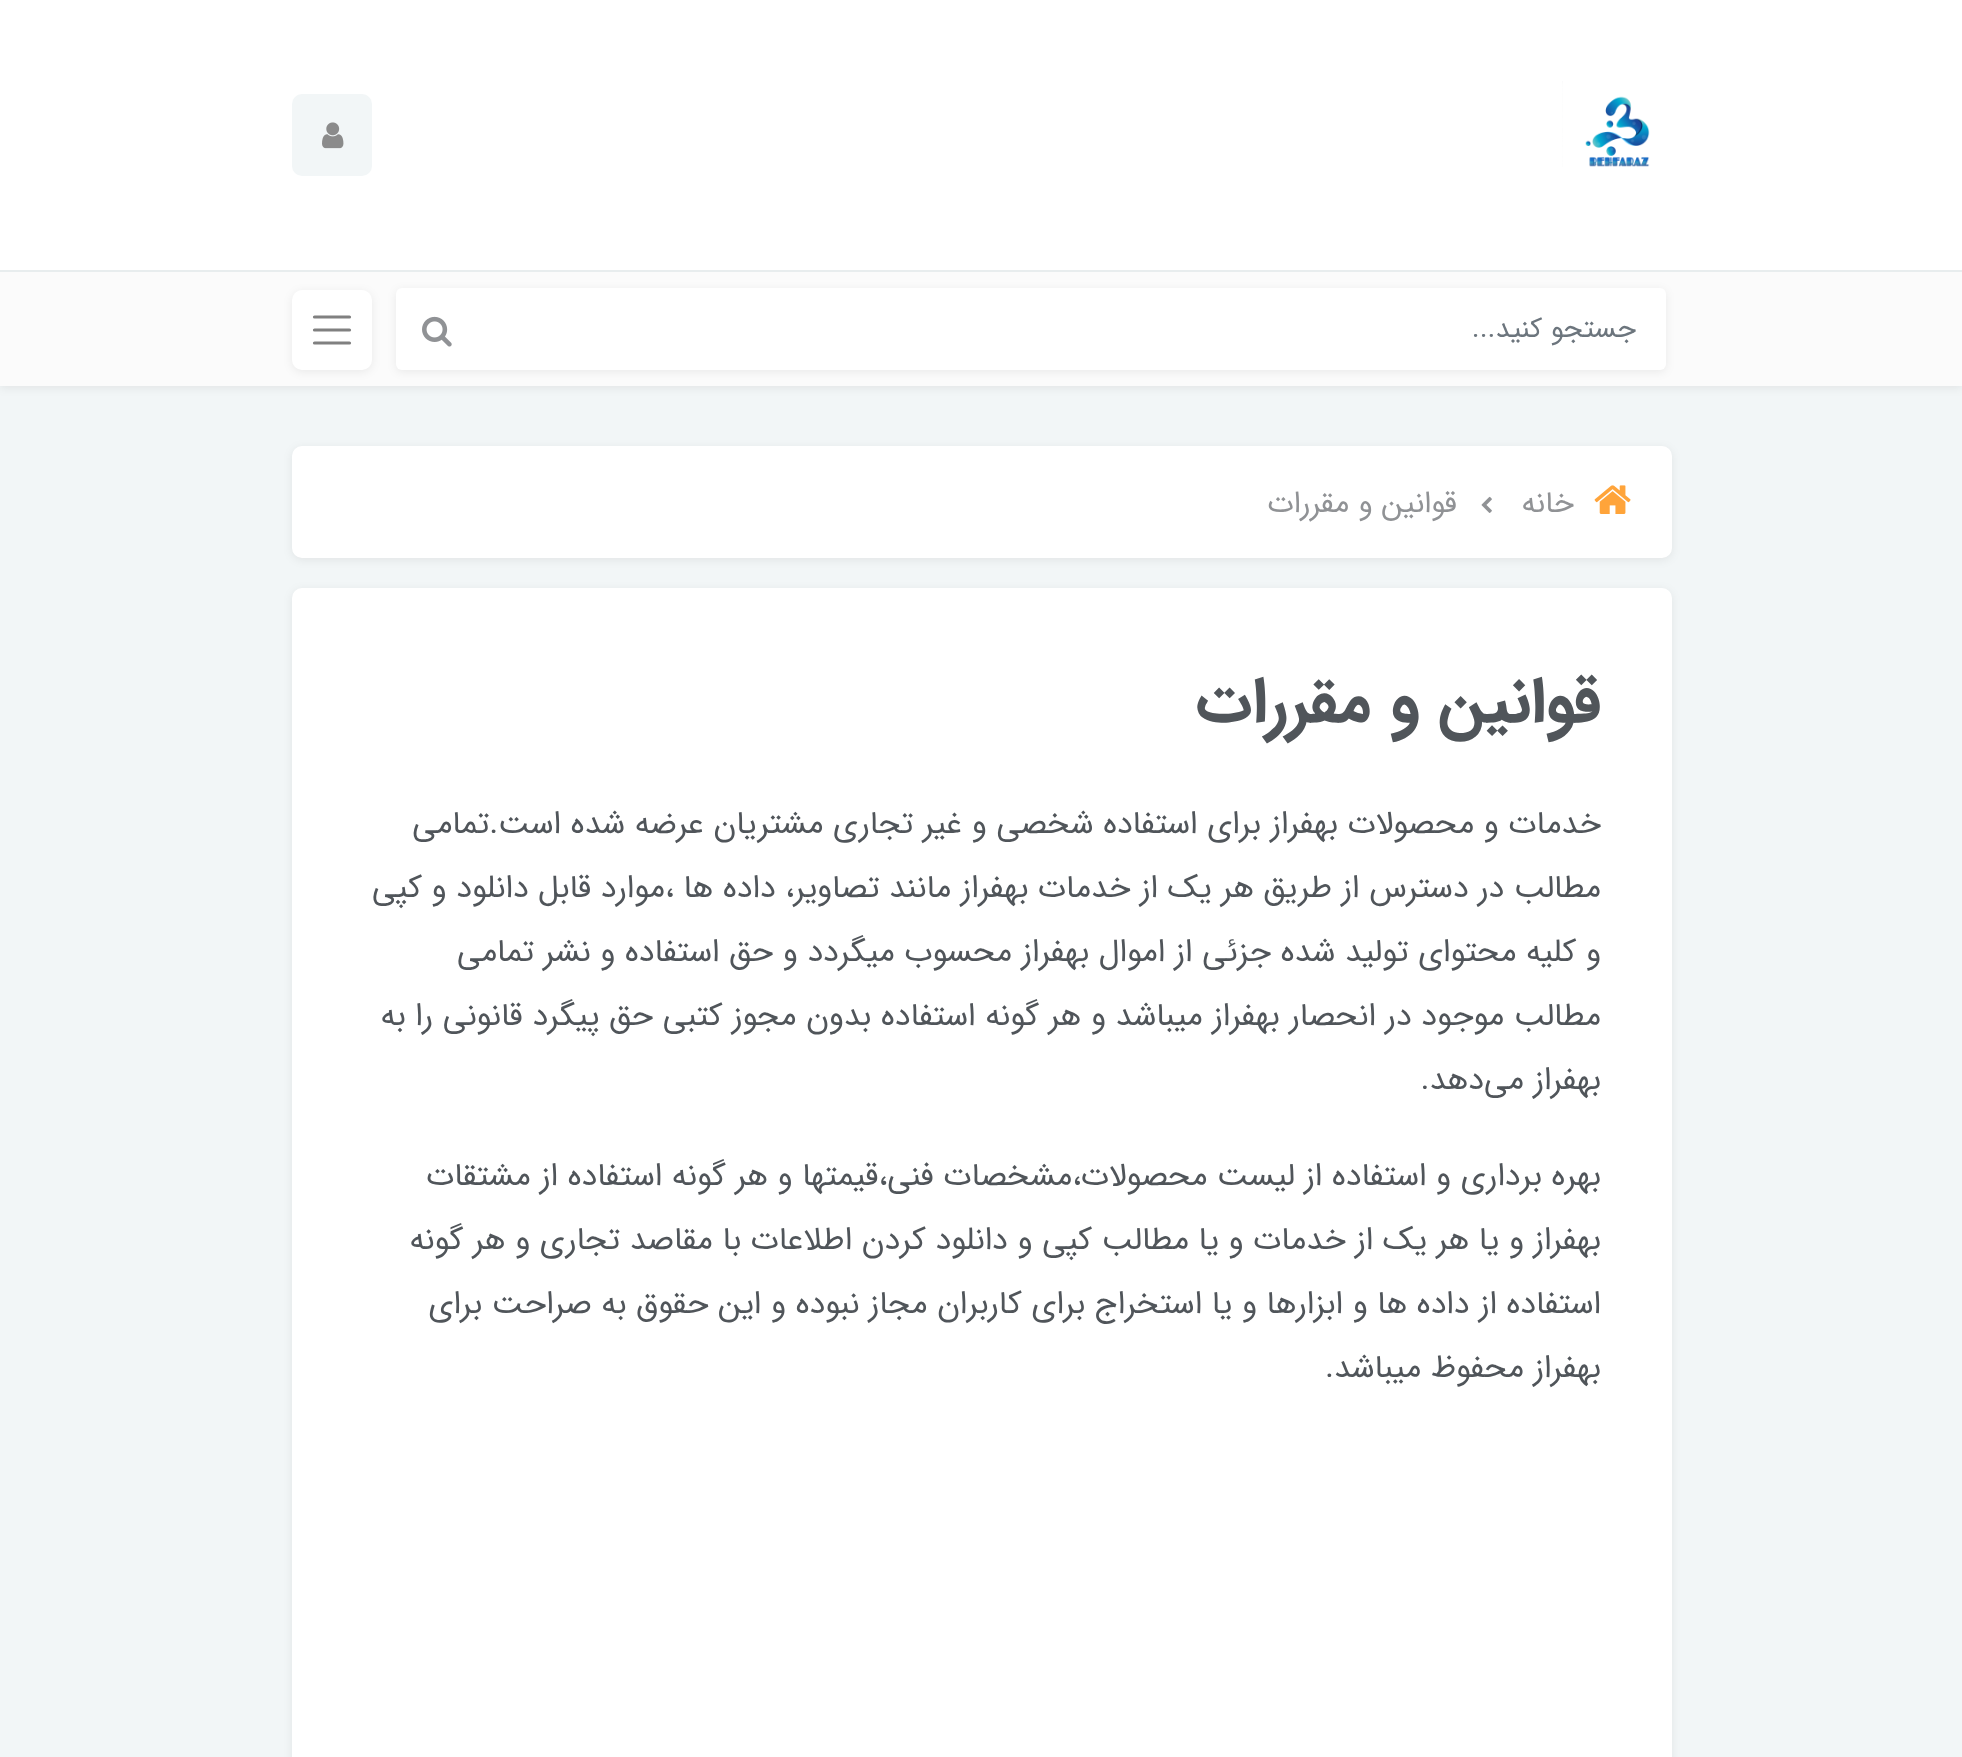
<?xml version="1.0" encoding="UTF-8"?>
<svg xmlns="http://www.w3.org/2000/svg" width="1962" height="1757">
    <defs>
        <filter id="blur1" x="-50%" y="-200%" width="200%" height="500%"><feGaussianBlur stdDeviation="5"/></filter>
    </defs>
    <rect width="100%" height="100%" fill="#F2F6F7"/>
    <rect x="0" y="2" width="1962" height="386" fill="#000000" fill-opacity="0.07" filter="url(#blur1)"/>
    <rect x="0" y="0" width="1962" height="270" fill="#FFFFFF"/>
    <image x="1562" y="81" width="88" height="86" href="img_01.png"/>
    <rect x="292" y="94" width="80" height="82" rx="10" fill="#F2F6F7"/>
    <image x="322" y="122" width="22" height="27" href="img_02.png"/>
    <rect x="0" y="272" width="1962" height="114" fill="#FBFBFB"/>
    <rect x="0" y="270" width="1962" height="2" fill="#E8EDEE"/>
    <rect x="396" y="290" width="1270" height="82" rx="6" fill="#000000" fill-opacity="0.07" filter="url(#blur1)"/>
    <rect x="396" y="288" width="1270" height="82" rx="6" fill="#FFFFFF"/>
    <text x="1636" y="337" font-family="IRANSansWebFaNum" font-size="28" direction="rtl" fill="#6C757D">جستجو کنید...</text>
    <image x="422" y="316" width="30" height="31" href="img_03.png"/>
    <rect x="292" y="292" width="80" height="80" rx="10" fill="#000000" fill-opacity="0.07" filter="url(#blur1)"/>
    <rect x="292" y="290" width="80" height="80" rx="10" fill="#FFFFFF"/>
    <path d="M 314.5 317 H 349.5 M 314.5 330 H 349.5 M 314.5 343 H 349.5" fill="none" stroke="#808080" stroke-width="3.2" stroke-linecap="round"/>
    <rect x="292" y="448" width="1380" height="112" rx="10" fill="#000000" fill-opacity="0.07" filter="url(#blur1)"/>
    <rect x="292" y="446" width="1380" height="112" rx="10" fill="#FFFFFF"/>
    <image x="1594" y="485" width="37" height="29" href="img_04.png"/>
    <text x="1574" y="512" font-family="IRANSansWebFaNum" font-size="30" direction="rtl" fill="#909295">خانه</text>
    <image x="1481" y="496" width="11" height="17" href="img_05.png"/>
    <text x="1457" y="512" font-family="IRANSansWebFaNum" font-size="30" direction="rtl" fill="#909295">قوانین و مقررات</text>
    <rect x="292" y="590" width="1380" height="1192" rx="10" fill="#000000" fill-opacity="0.07" filter="url(#blur1)"/>
    <rect x="292" y="588" width="1380" height="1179" rx="10" fill="#FFFFFF"/>
    <text x="1601" y="721" font-family="IRANSansWebFaNum" font-size="64" font-weight="700" direction="rtl" fill="#50555A">قوانین و مقررات</text>
    <text x="1601" y="833" font-family="IRANSansWebFaNum" font-size="32" direction="rtl" fill="#50555A">خدمات و محصولات بهفراز برای استفاده شخصی و غیر تجاری مشتریان عرضه شده است.تمامی</text>
    <text x="1601" y="897" font-family="IRANSansWebFaNum" font-size="32" direction="rtl" fill="#50555A">مطالب در دسترس از طریق هر یک از خدمات بهفراز مانند تصاویر، داده ها ،موارد قابل دانلود و کپی</text>
    <text x="1601" y="961" font-family="IRANSansWebFaNum" font-size="32" direction="rtl" fill="#50555A">و کلیه محتوای تولید شده جزئی از اموال بهفراز محسوب میگردد و حق استفاده و نشر تمامی</text>
    <text x="1601" y="1025" font-family="IRANSansWebFaNum" font-size="32" direction="rtl" fill="#50555A">مطالب موجود در انحصار بهفراز میباشد و هر گونه استفاده بدون مجوز کتبی حق پیگرد قانونی را به</text>
    <text x="1601" y="1089" font-family="IRANSansWebFaNum" font-size="32" direction="rtl" fill="#50555A">بهفراز می‌دهد.</text>
    <text x="1601" y="1185" font-family="IRANSansWebFaNum" font-size="32" direction="rtl" fill="#50555A">بهره برداری و استفاده از لیست محصولات،مشخصات فنی،قیمتها و هر گونه استفاده از مشتقات</text>
    <text x="1601" y="1249" font-family="IRANSansWebFaNum" font-size="32" direction="rtl" fill="#50555A">بهفراز و یا هر یک از خدمات و یا مطالب کپی و دانلود کردن اطلاعات با مقاصد تجاری و هر گونه</text>
    <text x="1601" y="1313" font-family="IRANSansWebFaNum" font-size="32" direction="rtl" fill="#50555A">استفاده از داده ها و ابزارها و یا استخراج برای کاربران مجاز نبوده و این حقوق به صراحت برای</text>
    <text x="1601" y="1377" font-family="IRANSansWebFaNum" font-size="32" direction="rtl" fill="#50555A">بهفراز محفوظ میباشد.</text>
</svg>
